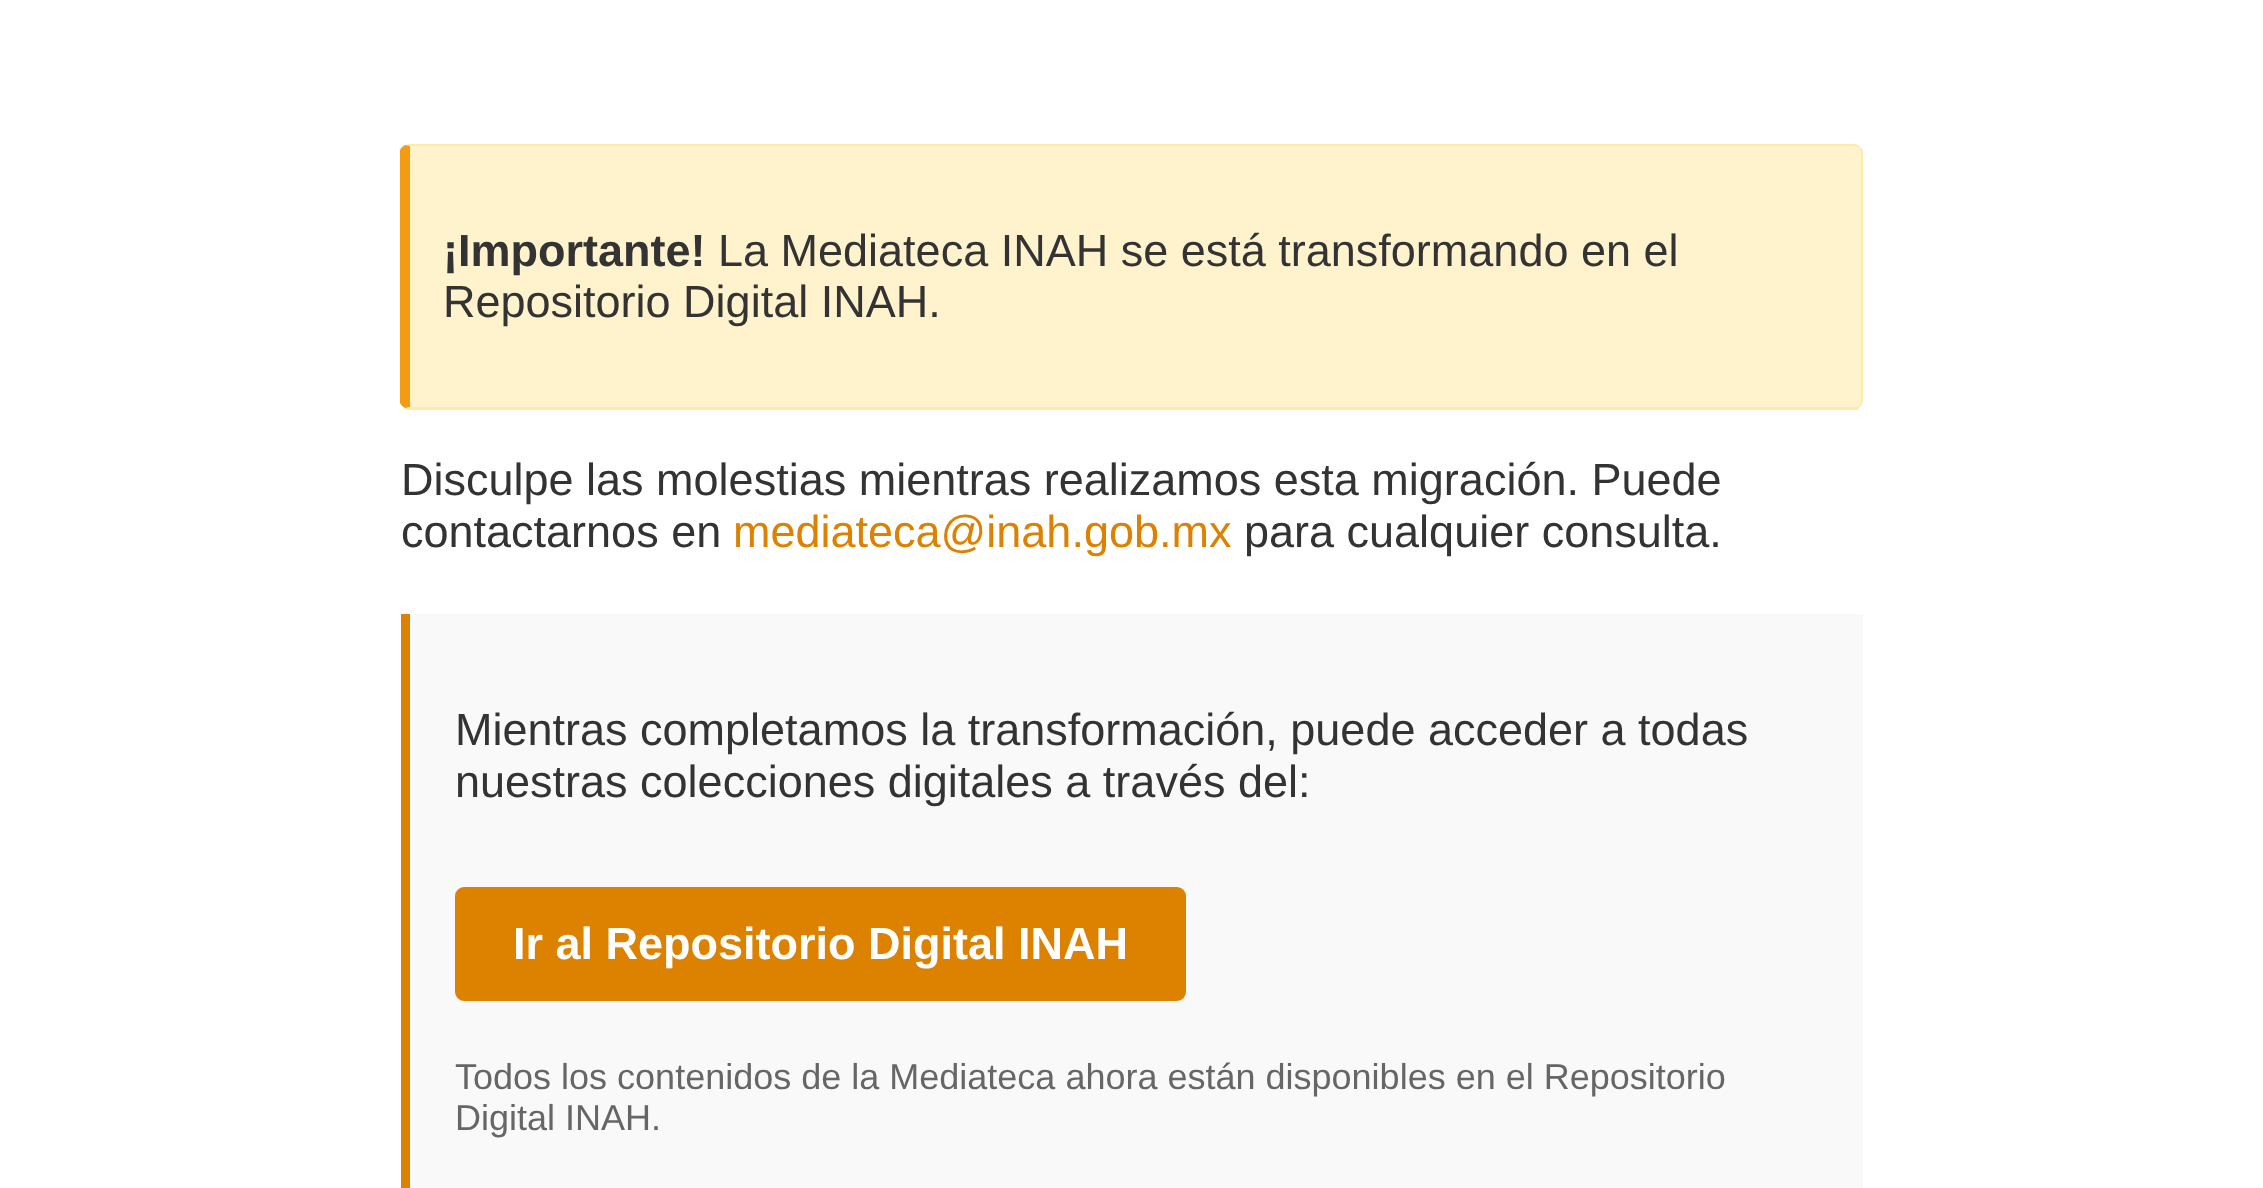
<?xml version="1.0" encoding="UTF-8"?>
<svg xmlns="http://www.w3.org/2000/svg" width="2263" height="1188">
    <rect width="100%" height="100%" fill="#FFFFFF"/>
    <path d="M 410 146 H 1854 C 1858 146 1861 149 1861 153 V 400 C 1861 404 1858 407 1854 407 H 410 Z" fill="#FFF3CD"/>
    <path d="M 410 144 L 405 145 L 410 146 H 1854 C 1856 146 1858 147 1859 148 L 1860 147 C 1859 145 1856 144 1854 144 Z" fill="#FFEAA7"/>
    <path d="M 1863 400 V 153 C 1863 150 1862 148 1860 147 L 1859 148 C 1860 149 1861 151 1861 153 V 400 C 1861 402 1860 404 1859 405 L 1860 407 C 1862 405 1863 402 1863 400 Z" fill="#FFEAA7"/>
    <path d="M 407 410 L 405 408 L 410 407 H 1854 C 1856 407 1858 406 1859 405 L 1860 407 L 1857 410 Z" fill="#FFEAA7"/>
    <path d="M 400 150 C 401 148 403 146 405 145 L 410 146 V 407 L 405 408 C 403 407 401 405 400 403 Z" fill="#F39C12"/>
    <text x="443" y="266" font-family="Liberation Sans" font-size="45" font-weight="700" fill="#333333">¡Importante!</text>
    <text x="718" y="266" font-family="Liberation Sans" font-size="45" fill="#333333">La Mediateca INAH se está transformando en el</text>
    <text x="443" y="317" font-family="Liberation Sans" font-size="45" fill="#333333">Repositorio Digital INAH.</text>
    <text font-family="Liberation Sans" font-size="45" fill="#333333">
        <tspan x="401" y="495">Disculpe las molestias mientras realizamos esta migración. Puede</tspan>
        <tspan x="401" y="547">contactarnos en</tspan>
    </text>
    <text x="733" y="547" font-family="Liberation Sans" font-size="45" fill="#DC8100">mediateca@inah.gob.mx</text>
    <text x="1244" y="547" font-family="Liberation Sans" font-size="45" fill="#333333">para cualquier consulta.</text>
    <rect x="410" y="614" width="1453" height="574" fill="#F9F9F9"/>
    <rect x="401" y="614" width="9" height="574" fill="#DC8100"/>
    <text font-family="Liberation Sans" font-size="45" fill="#333333">
        <tspan x="455" y="745">Mientras completamos la transformación, puede acceder a todas</tspan>
        <tspan x="455" y="797">nuestras colecciones digitales a través del:</tspan>
    </text>
    <rect x="457.5" y="889.5" width="726" height="109" rx="6.5" fill="#DC8100" stroke="#DC8100" stroke-width="5"/>
    <text x="513" y="959" font-family="Liberation Sans" font-size="45" font-weight="700" fill="#FFFFFF">Ir al Repositorio Digital INAH</text>
    <text font-family="Liberation Sans" font-size="36" fill="#666666">
        <tspan x="455" y="1089">Todos los contenidos de la Mediateca ahora están disponibles en el Repositorio</tspan>
        <tspan x="455" y="1130">Digital INAH.</tspan>
    </text>
</svg>
